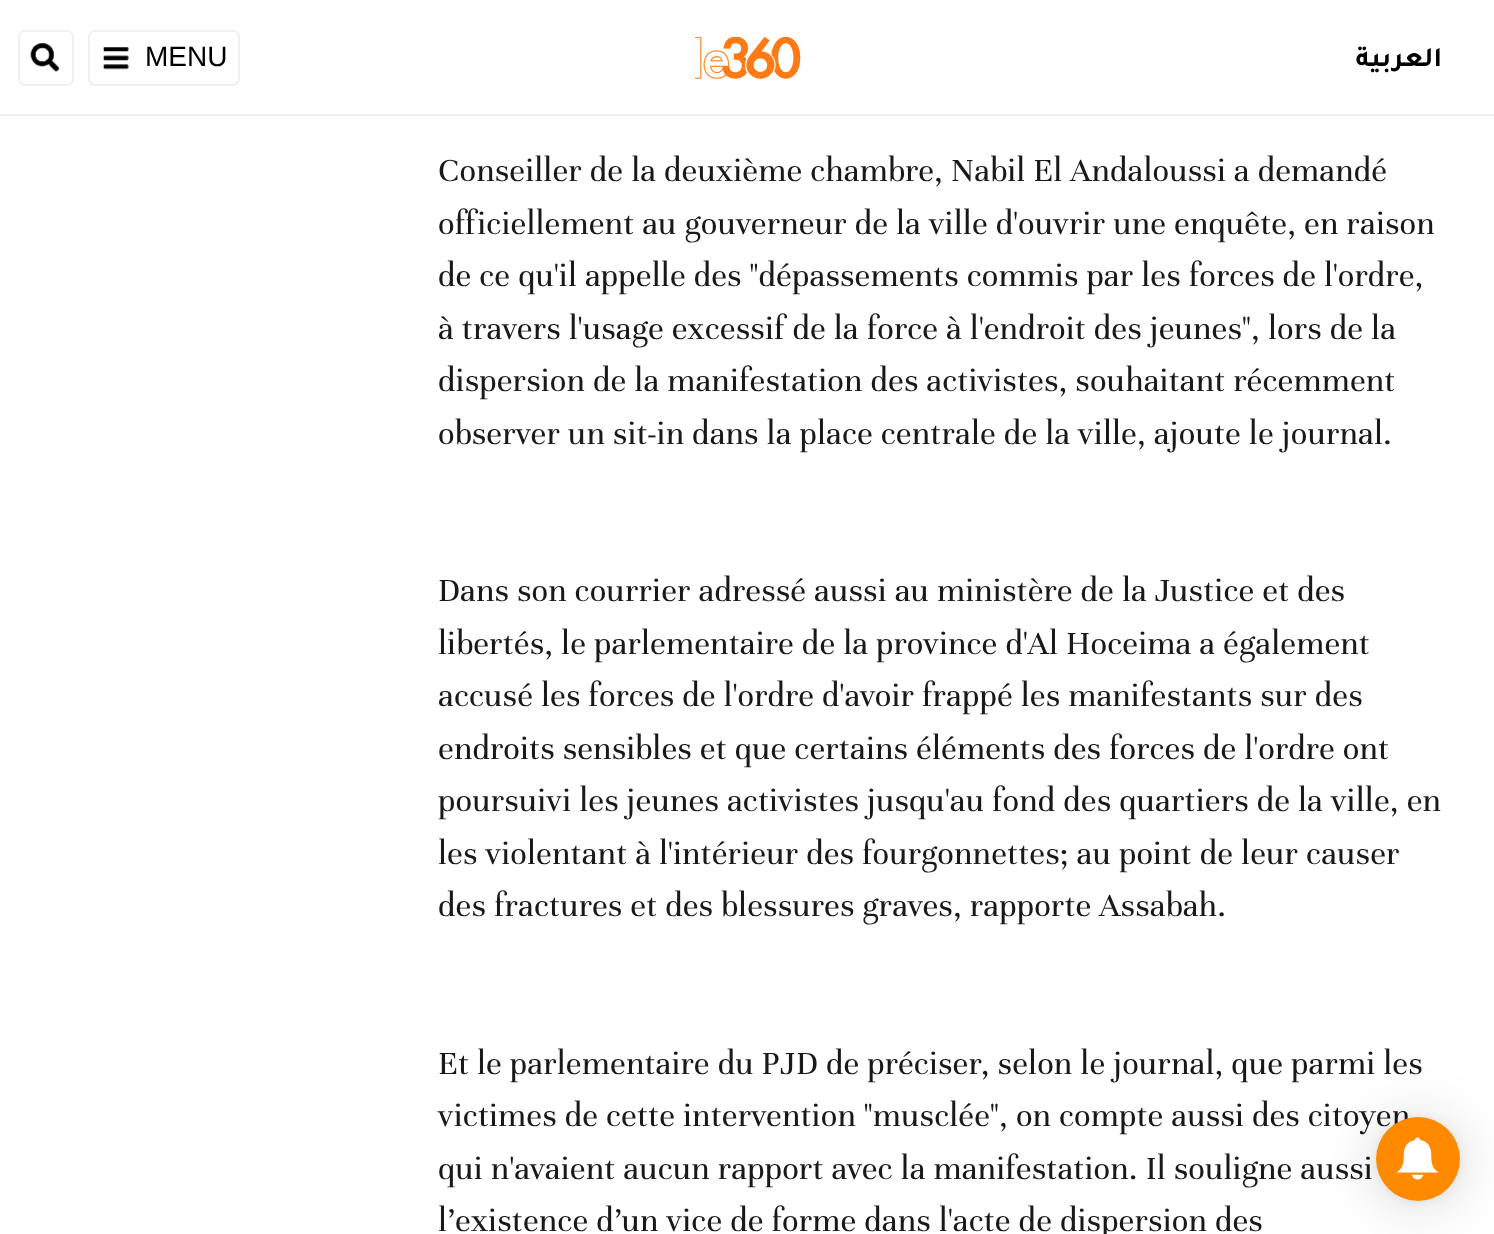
<?xml version="1.0" encoding="UTF-8"?>
<svg xmlns="http://www.w3.org/2000/svg" width="1494" height="1234">
    <defs>
        <filter id="blur1" x="-50%" y="-200%" width="200%" height="500%"><feGaussianBlur stdDeviation="28"/></filter>
        <filter id="blur2" x="-50%" y="-200%" width="200%" height="500%"><feGaussianBlur stdDeviation="5"/></filter>
    </defs>
    <rect width="100%" height="100%" fill="#FFFFFF"/>
    <rect x="0" y="114" width="1494" height="2" fill="#F0F0F0"/>
    <rect x="19" y="31" width="54" height="54" rx="6" fill="none" stroke="#F0F0F0" stroke-width="2"/>
    <image x="30" y="43" width="30" height="29" href="img_01.png"/>
    <rect x="89" y="31" width="150" height="54" rx="6" fill="none" stroke="#F0F0F0" stroke-width="2"/>
    <image x="103" y="47" width="26" height="23" href="img_02.png"/>
    <text x="145" y="66" font-family="Liberation Sans" font-size="28" fill="#000000">MENU</text>
    <image x="695" y="37" width="106" height="42" href="img_03.png"/>
    <text x="1442" y="66" font-family="Tajawal" font-size="28" font-weight="700" direction="rtl" fill="#000000">العربية</text>
    <text font-family="Unna" font-size="35" letter-spacing="0.18" fill="#191919">
        <tspan x="438" y="181">Conseiller de la deuxième chambre, Nabil El Andaloussi a demandé</tspan>
        <tspan x="438" y="234">officiellement au gouverneur de la ville d'ouvrir une enquête, en raison</tspan>
        <tspan x="438" y="286">de ce qu'il appelle des "dépassements commis par les forces de l'ordre,</tspan>
        <tspan x="438" y="339">à travers l'usage excessif de la force à l'endroit des jeunes", lors de la</tspan>
        <tspan x="438" y="391">dispersion de la manifestation des activistes, souhaitant récemment</tspan>
        <tspan x="438" y="444">observer un sit-in dans la place centrale de la ville, ajoute le journal.</tspan>
    </text>
    <text font-family="Unna" font-size="35" letter-spacing="0.18" fill="#191919">
        <tspan x="438" y="601">Dans son courrier adressé aussi au ministère de la Justice et des</tspan>
        <tspan x="438" y="654">libertés, le parlementaire de la province d'Al Hoceima a également</tspan>
        <tspan x="438" y="706">accusé les forces de l'ordre d'avoir frappé les manifestants sur des</tspan>
        <tspan x="438" y="759">endroits sensibles et que certains éléments des forces de l'ordre ont</tspan>
        <tspan x="438" y="811">poursuivi les jeunes activistes jusqu'au fond des quartiers de la ville, en</tspan>
        <tspan x="438" y="864">les violentant à l'intérieur des fourgonnettes; au point de leur causer</tspan>
        <tspan x="438" y="916">des fractures et des blessures graves, rapporte Assabah.</tspan>
    </text>
    <text font-family="Unna" font-size="35" letter-spacing="0.18" fill="#191919">
        <tspan x="438" y="1074">Et le parlementaire du PJD de préciser, selon le journal, que parmi les</tspan>
        <tspan x="438" y="1126">victimes de cette intervention "musclée", on compte aussi des citoyen</tspan>
        <tspan x="438" y="1179">qui n'avaient aucun rapport avec la manifestation. Il souligne aussi</tspan>
        <tspan x="438" y="1231">l’existence d’un vice de forme dans l'acte de dispersion des</tspan>
    </text>
    <rect x="1376" y="1120" width="84" height="84" rx="42" fill="#000000" fill-opacity="0.16" filter="url(#blur1)"/>
    <rect x="1376" y="1118" width="84" height="84" rx="42" fill="#000000" fill-opacity="0.06" filter="url(#blur2)"/>
    <circle cx="1418" cy="1159" r="42" fill="#FF8A00"/>
    <image x="1396" y="1137" width="43" height="43" href="img_04.png"/>
</svg>
